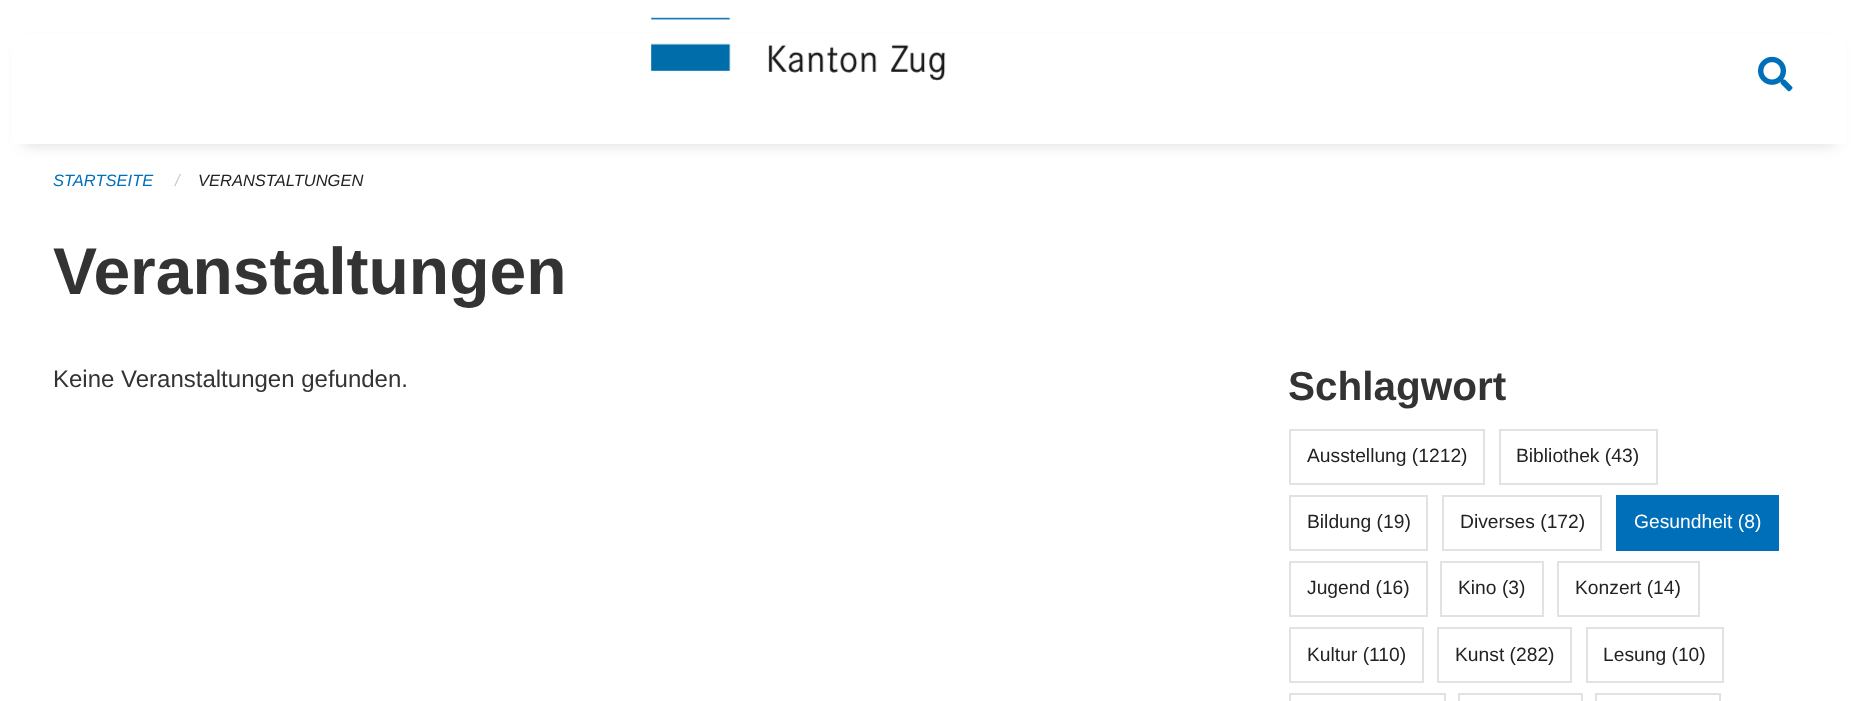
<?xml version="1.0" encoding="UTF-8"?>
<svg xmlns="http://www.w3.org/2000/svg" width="1856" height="701">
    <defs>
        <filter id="blur1" x="-50%" y="-200%" width="200%" height="500%"><feGaussianBlur stdDeviation="7.5"/></filter>
    </defs>
    <rect width="100%" height="100%" fill="#FFFFFF"/>
    <rect x="23" y="45" width="1812" height="99" fill="#000000" fill-opacity="0.15" filter="url(#blur1)"/>
    <rect x="12" y="34" width="1834" height="110" fill="#FFFFFF"/>
    <image x="651" y="17" width="295" height="64" href="img_01.png"/>
    <image x="1758" y="56" width="35" height="36" href="img_02.png"/>
    <text x="53" y="186" font-family="Liberation Sans" font-size="16.5" font-style="italic" fill="#006FBA">STARTSEITE</text>
    <text x="175" y="186" font-family="Liberation Sans" font-size="16.5" font-style="italic" fill="#CACACA">/</text>
    <text x="198" y="186" font-family="Liberation Sans" font-size="16.5" font-style="italic" fill="#222222">VERANSTALTUNGEN</text>
    <text x="53" y="294" font-family="Liberation Sans" font-size="66" font-weight="700" fill="#333333">Veranstaltungen</text>
    <text x="53" y="387" font-family="Liberation Sans" font-size="24" fill="#333333">Keine Veranstaltungen gefunden.</text>
    <text x="1288" y="400" font-family="Liberation Sans" font-size="40.5" font-weight="700" fill="#333333">Schlagwort</text>
    <rect x="1290" y="430" width="194" height="54" fill="none" stroke="#E0E3E5" stroke-width="2"/>
    <text x="1307" y="462" font-family="Liberation Sans" font-size="19.25" fill="#222222">Ausstellung (1212)</text>
    <rect x="1500" y="430" width="157" height="54" fill="none" stroke="#E0E3E5" stroke-width="2"/>
    <text x="1516" y="462" font-family="Liberation Sans" font-size="19.25" fill="#222222">Bibliothek (43)</text>
    <rect x="1290" y="496" width="137" height="54" fill="none" stroke="#E0E3E5" stroke-width="2"/>
    <text x="1307" y="528" font-family="Liberation Sans" font-size="19.25" fill="#222222">Bildung (19)</text>
    <rect x="1443" y="496" width="158" height="54" fill="none" stroke="#E0E3E5" stroke-width="2"/>
    <text x="1460" y="528" font-family="Liberation Sans" font-size="19.25" fill="#222222">Diverses (172)</text>
    <rect x="1616" y="495" width="163" height="56" fill="#006FBA"/>
    <text x="1634" y="528" font-family="Liberation Sans" font-size="19.25" fill="#FFFFFF">Gesundheit (8)</text>
    <rect x="1290" y="562" width="137" height="54" fill="none" stroke="#E0E3E5" stroke-width="2"/>
    <text x="1307" y="594" font-family="Liberation Sans" font-size="19.25" fill="#222222">Jugend (16)</text>
    <rect x="1441" y="562" width="102" height="54" fill="none" stroke="#E0E3E5" stroke-width="2"/>
    <text x="1458" y="594" font-family="Liberation Sans" font-size="19.25" fill="#222222">Kino (3)</text>
    <rect x="1558" y="562" width="141" height="54" fill="none" stroke="#E0E3E5" stroke-width="2"/>
    <text x="1575" y="594" font-family="Liberation Sans" font-size="19.25" fill="#222222">Konzert (14)</text>
    <rect x="1290" y="628" width="133" height="54" fill="none" stroke="#E0E3E5" stroke-width="2"/>
    <text x="1307" y="661" font-family="Liberation Sans" font-size="19.25" fill="#222222">Kultur (110)</text>
    <rect x="1438" y="628" width="133" height="54" fill="none" stroke="#E0E3E5" stroke-width="2"/>
    <text x="1455" y="661" font-family="Liberation Sans" font-size="19.25" fill="#222222">Kunst (282)</text>
    <rect x="1587" y="628" width="136" height="54" fill="none" stroke="#E0E3E5" stroke-width="2"/>
    <text x="1603" y="661" font-family="Liberation Sans" font-size="19.25" fill="#222222">Lesung (10)</text>
    <rect x="1290" y="694" width="155" height="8" fill="none" stroke="#E0E3E5" stroke-width="2"/>
    <rect x="1459" y="694" width="123" height="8" fill="none" stroke="#E0E3E5" stroke-width="2"/>
    <rect x="1596" y="694" width="124" height="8" fill="none" stroke="#E0E3E5" stroke-width="2"/>
</svg>
